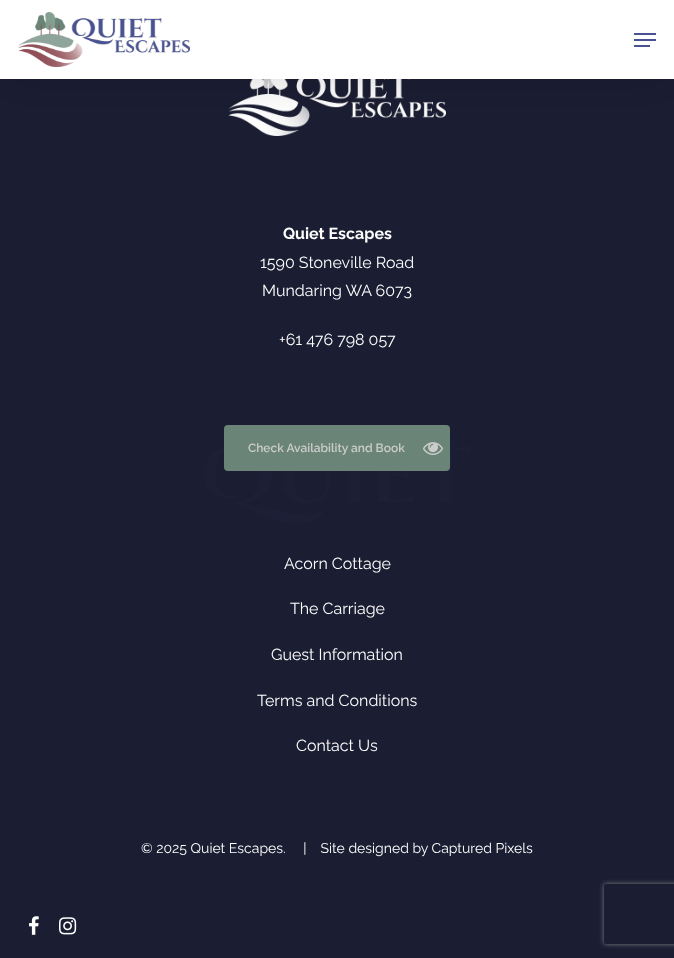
<?xml version="1.0" encoding="UTF-8"?>
<svg xmlns="http://www.w3.org/2000/svg" width="674" height="958">
    <defs>
        <filter id="blur1" x="-50%" y="-200%" width="200%" height="500%"><feGaussianBlur stdDeviation="22.5"/></filter>
        <clipPath id="clip1"><path d="M 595 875 H 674 V 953 H 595 Z M 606 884 H 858 C 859 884 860 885 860 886 V 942 C 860 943 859 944 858 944 H 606 C 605 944 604 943 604 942 V 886 C 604 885 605 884 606 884 Z" clip-rule="evenodd"/></clipPath>
        <filter id="blur2" x="-50%" y="-200%" width="200%" height="500%"><feGaussianBlur stdDeviation="2.5"/></filter>
    </defs>
    <rect width="100%" height="100%" fill="#1B1D33"/>
    <image x="228" y="79" width="218" height="57" href="img_03.png"/>
    <rect x="0" y="3" width="674" height="79" fill="#000000" fill-opacity="0.15" filter="url(#blur1)"/>
    <rect x="0" y="0" width="674" height="79" fill="#FFFFFF"/>
    <image x="18" y="12" width="172" height="55" href="img_01.png"/>
    <rect x="634" y="33" width="22" height="2" fill="#4A5391"/>
    <rect x="634" y="45" width="16" height="2" fill="#4A5391"/>
    <rect x="634" y="39" width="22" height="2" fill="#4A5391"/>
    <image x="203" y="446" width="268" height="77" href="img_02.png"/>
    <text x="283" y="239" font-family="Raleway" font-size="16" font-weight="700" fill="#FFFFFF">Quiet Escapes</text>
    <text x="260" y="268" font-family="Raleway" font-size="16" fill="#FFFFFF">1590 Stoneville Road</text>
    <text x="262" y="296" font-family="Raleway" font-size="16" fill="#FFFFFF">Mundaring WA 6073</text>
    <text x="279" y="345" font-family="Raleway" font-size="16" fill="#FFFFFF">+61 476 798 057</text>
    <rect x="224" y="425" width="226" height="46" rx="4" fill="#6A8578"/>
    <text x="248" y="452" font-family="Raleway" font-size="12" font-weight="600" fill="#CCCCCC">Check Availability and Book</text>
    <image x="423" y="442" width="20" height="13" href="img_04.png"/>
    <text x="284" y="569" font-family="Raleway" font-size="16" fill="#FFFFFF">Acorn Cottage</text>
    <text x="290" y="614" font-family="Raleway" font-size="16" fill="#FFFFFF">The Carriage</text>
    <text x="271" y="660" font-family="Raleway" font-size="16" fill="#FFFFFF">Guest Information</text>
    <text x="257" y="706" font-family="Raleway" font-size="16" fill="#FFFFFF">Terms and Conditions</text>
    <text x="296" y="751" font-family="Raleway" font-size="16" fill="#FFFFFF">Contact Us</text>
    <text x="141" y="853" font-family="Raleway" font-size="14" fill="#FFFFFF">© 2025 Quiet Escapes.  | Site designed by Captured Pixels</text>
    <image x="29" y="916" width="10" height="19" href="img_05.png"/>
    <image x="59" y="917" width="18" height="18" href="img_06.png"/>
    <g clip-path="url(#clip1)">
        <rect x="604" y="884" width="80" height="60" rx="2" fill="#808080" filter="url(#blur2)"/>
    </g>
</svg>
